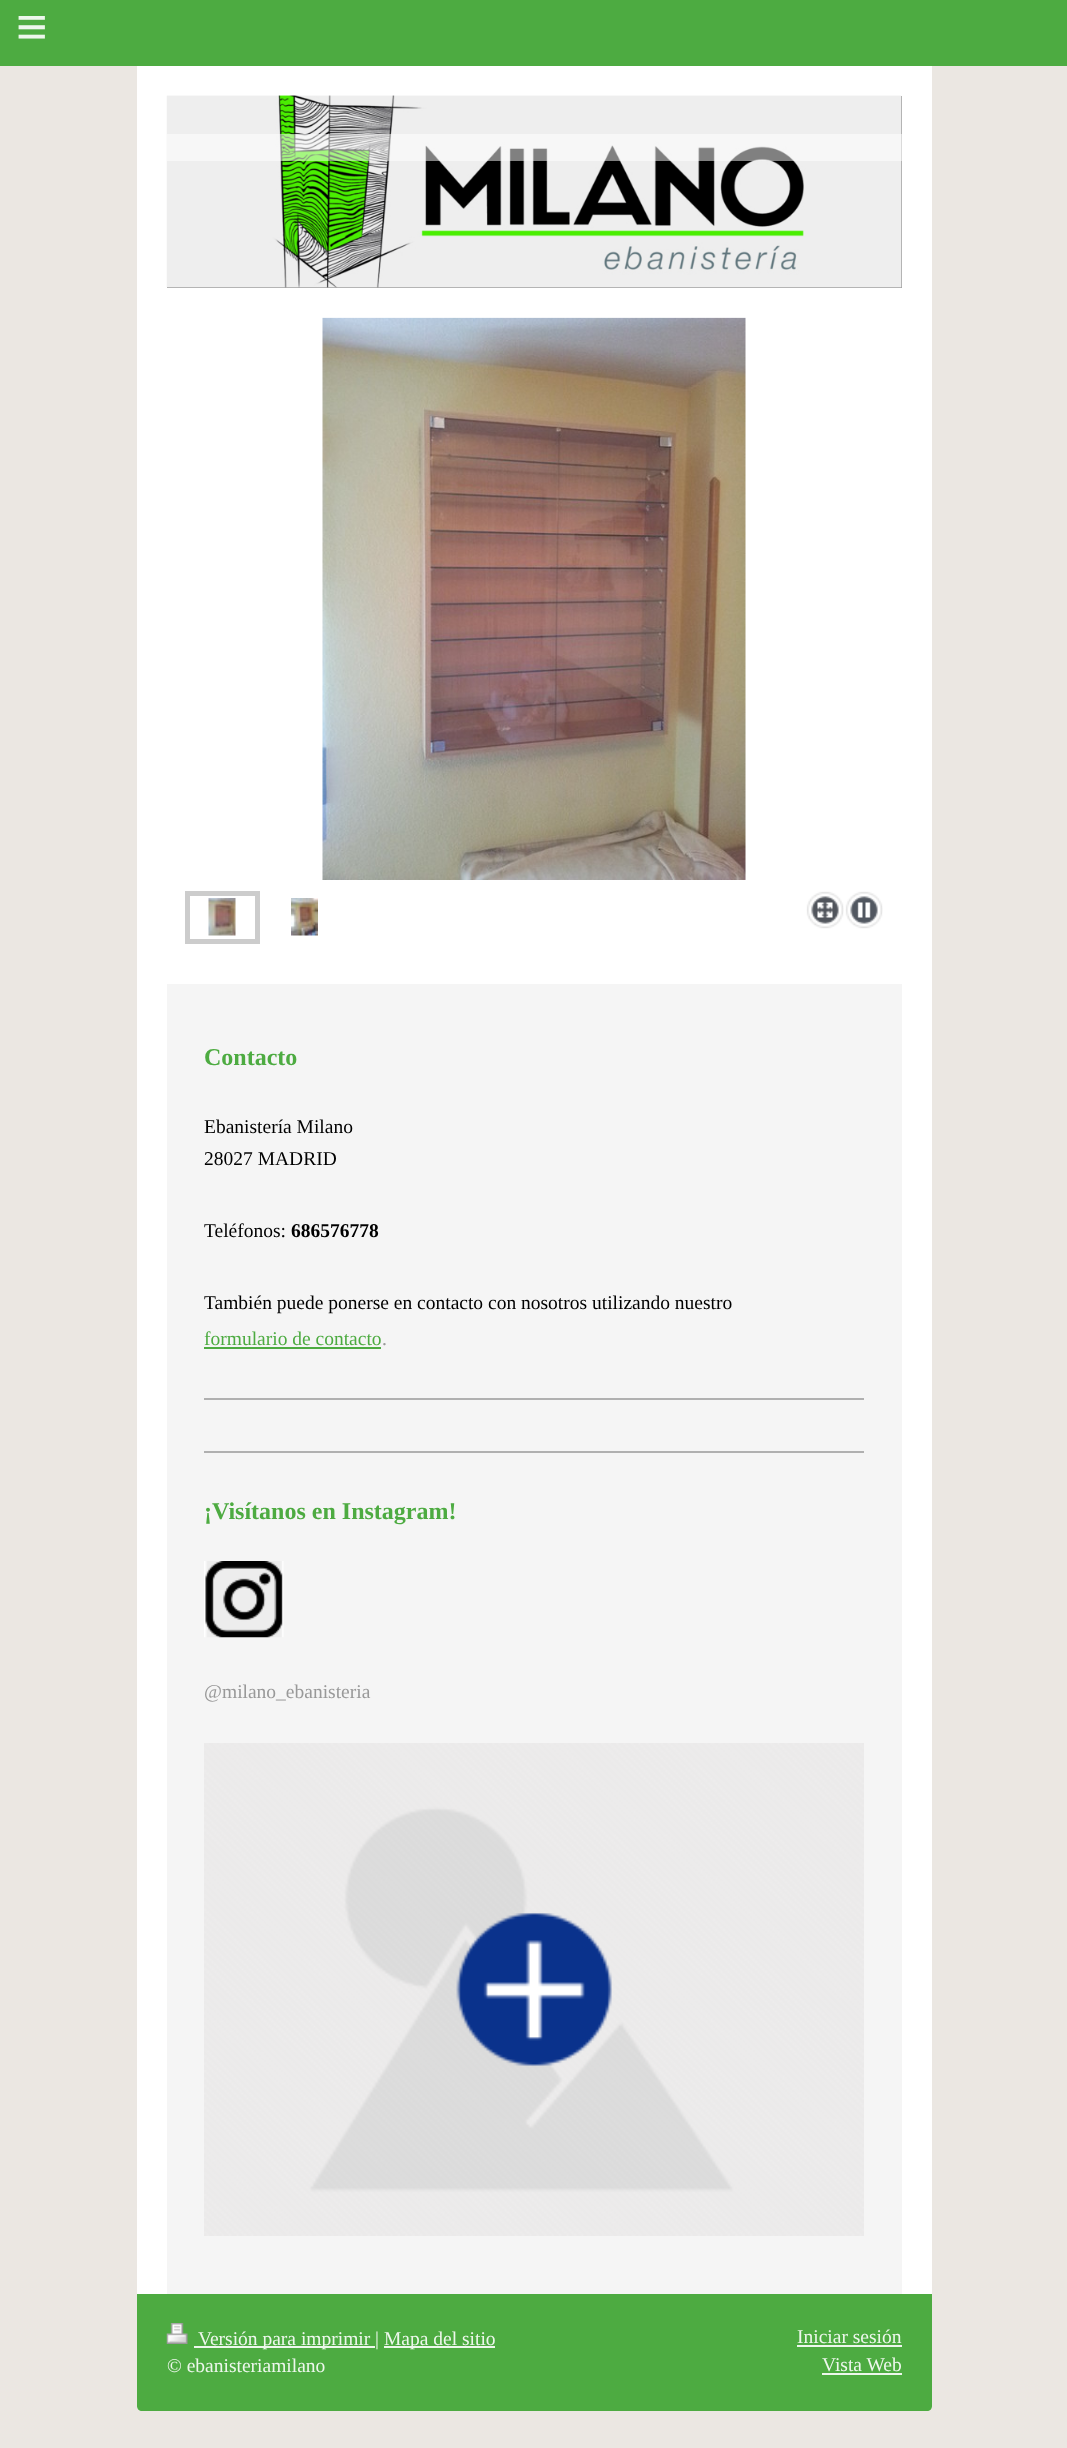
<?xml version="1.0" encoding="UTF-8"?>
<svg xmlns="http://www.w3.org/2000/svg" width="1067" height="2448">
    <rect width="100%" height="100%" fill="#EBE7E2"/>
    <path d="M 137 32 H 932 V 2406 C 932 2409 930 2411 927 2411 H 142 C 139 2411 137 2409 137 2406 Z" fill="#FFFFFF"/>
    <rect x="0" y="0" width="1067" height="66" fill="#4DAB41"/>
    <text x="16" y="45" font-family="Liberation Sans" font-size="54" letter-spacing="16" fill="#EDF7EC">≡</text>
    <image x="166" y="95" width="736" height="193" href="img_01.png"/>
    <rect x="167" y="96" width="735" height="192" fill="#A0A0A0"/>
    <image x="167" y="95" width="735" height="193" href="img_02.png"/>
    <rect x="167" y="134" width="735" height="27" fill="#FFFFFF" fill-opacity="0.5"/>
    <image x="322" y="317" width="424" height="563" href="img_03.png"/>
    <rect x="187.5" y="893.5" width="70" height="48" fill="none" stroke="#CCCCCC" stroke-width="5"/>
    <image x="208" y="898" width="28" height="38" href="img_04.png"/>
    <image x="291" y="898" width="27" height="38" href="img_05.png"/>
    <image x="806" y="891" width="38" height="38" href="img_06.png"/>
    <image x="845" y="891" width="38" height="38" href="img_07.png"/>
    <rect x="167" y="984" width="735" height="1310" fill="#F5F5F5"/>
    <text x="204" y="1065" font-family="Liberation Serif" font-size="24" font-weight="700" fill="#4DAB41">Contacto</text>
    <text font-family="Liberation Serif" font-size="19.5" fill="#000000">
        <tspan x="204" y="1133">Ebanistería Milano</tspan>
        <tspan x="204" y="1165">28027 MADRID</tspan>
    </text>
    <text x="204" y="1237" font-family="Liberation Serif" font-size="19.5" fill="#000000">Teléfonos:</text>
    <text x="291" y="1237" font-family="Liberation Serif" font-size="19.5" font-weight="700" fill="#000000">686576778</text>
    <text x="204" y="1309" font-family="Liberation Serif" font-size="19.5" fill="#000000">También puede ponerse en contacto con nosotros utilizando nuestro</text>
    <text x="204" y="1345" font-family="Liberation Serif" font-size="19.5" fill="#4DAB41">formulario de contacto</text>
    <rect x="204" y="1347" width="177" height="2" fill="#4DAB41"/>
    <text x="382" y="1345" font-family="Liberation Serif" font-size="19.5" fill="#999999">.</text>
    <rect x="204" y="1398" width="660" height="2" fill="#B0B0B0"/>
    <rect x="204" y="1451" width="660" height="2" fill="#B0B0B0"/>
    <text x="204" y="1519" font-family="Liberation Serif" font-size="24" font-weight="700" fill="#4DAB41">¡Visítanos en Instagram!</text>
    <image x="204" y="1561" width="80" height="77" href="img_08.png"/>
    <text x="204" y="1698" font-family="Liberation Serif" font-size="19.5" fill="#999999">@milano_ebanisteria</text>
    <image x="204" y="1743" width="660" height="493" href="img_09.png"/>
    <path d="M 137 2294 H 932 V 2406 C 932 2409 930 2411 927 2411 H 142 C 139 2411 137 2409 137 2406 Z" fill="#4DAB41"/>
    <image x="166" y="2323" width="22" height="21" href="img_10.png"/>
    <rect x="194" y="2346" width="181" height="2" fill="#EDF7EC"/>
    <text x="198" y="2345" font-family="Liberation Serif" font-size="19.5" fill="#EDF7EC">Versión para imprimir |</text>
    <rect x="384" y="2346" width="111" height="2" fill="#EDF7EC"/>
    <text x="384" y="2345" font-family="Liberation Serif" font-size="19.5" fill="#EDF7EC">Mapa del sitio</text>
    <text x="167" y="2372" font-family="Liberation Serif" font-size="19.5" fill="#EDF7EC">© ebanisteriamilano</text>
    <text x="797" y="2343" font-family="Liberation Serif" font-size="19.5" fill="#EDF7EC">Iniciar sesión</text>
    <rect x="797" y="2345" width="105" height="2" fill="#EDF7EC"/>
    <text x="822" y="2371" font-family="Liberation Serif" font-size="19.5" fill="#EDF7EC">Vista Web</text>
    <rect x="822" y="2373" width="80" height="2" fill="#EDF7EC"/>
</svg>
